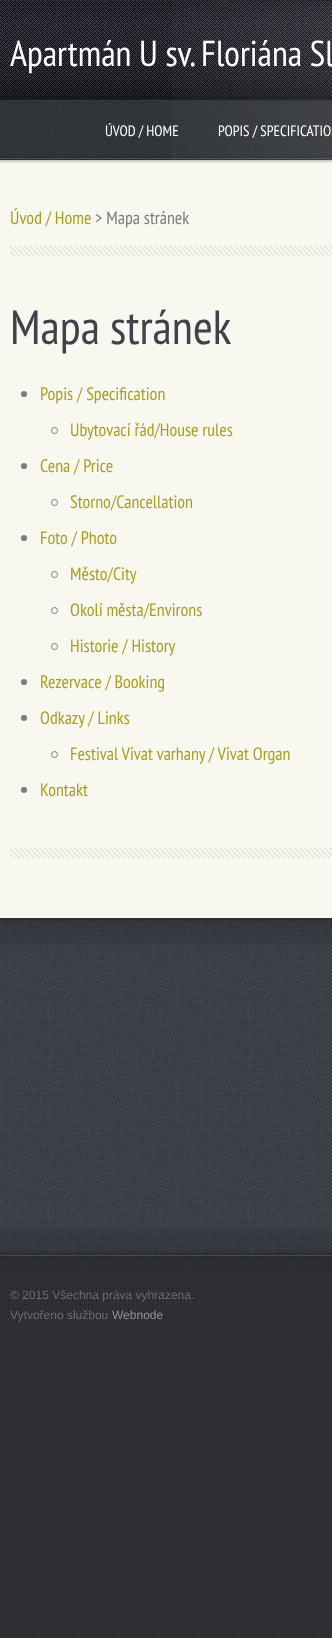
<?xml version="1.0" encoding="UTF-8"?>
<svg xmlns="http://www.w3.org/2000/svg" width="332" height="1638">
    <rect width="100%" height="100%" fill="#FFFFFF"/>
    <image x="0" y="100" width="332" height="1538" href="img_01.png"/>
    <image x="0" y="0" width="332" height="100" href="img_02.png"/>
    <image x="172" y="1" width="160" height="99" href="img_03.png"/>
    <text x="10" y="66" font-family="PT Sans Narrow" font-size="36" fill="#FFFFFF">Apartmán U sv. Floriána Sl</text>
    <image x="0" y="100" width="332" height="60" href="img_04.png"/>
    <image x="172" y="101" width="160" height="59" href="img_05.png"/>
    <text x="105" y="136" font-family="PT Sans Narrow" font-size="15" fill="#FFFFFF">ÚVOD / HOME</text>
    <text x="218" y="136" font-family="PT Sans Narrow" font-size="15" fill="#FFFFFF">POPIS / SPECIFICATIO</text>
    <rect x="0" y="160" width="332" height="758" fill="#F8F7F0"/>
    <image x="0" y="160" width="332" height="3" href="img_06.png"/>
    <image x="10" y="246" width="322" height="10" href="img_07.png"/>
    <text x="10" y="224" font-family="PT Sans Narrow" font-size="18" fill="#A79F20">Úvod / Home</text>
    <text x="95" y="224" font-family="PT Sans Narrow" font-size="18" fill="#7C7C7C">&gt; Mapa stránek</text>
    <image x="10" y="848" width="322" height="10" href="img_07.png"/>
    <text x="10" y="344" font-family="PT Sans Narrow" font-size="48" fill="#3F424A">Mapa stránek</text>
    <circle cx="24" cy="394" r="3" fill="#7C7C7C"/>
    <text x="40" y="400" font-family="PT Sans Narrow" font-size="18" fill="#A79F20">Popis / Specification</text>
    <circle cx="54.5" cy="430.5" r="3" fill="none" stroke="#7C7C7C"/>
    <text x="70" y="436" font-family="PT Sans Narrow" font-size="18" fill="#A79F20">Ubytovací řád/House rules</text>
    <circle cx="24" cy="466" r="3" fill="#7C7C7C"/>
    <text x="40" y="472" font-family="PT Sans Narrow" font-size="18" fill="#A79F20">Cena / Price</text>
    <circle cx="54.5" cy="502.5" r="3" fill="none" stroke="#7C7C7C"/>
    <text x="70" y="508" font-family="PT Sans Narrow" font-size="18" fill="#A79F20">Storno/Cancellation</text>
    <circle cx="24" cy="538" r="3" fill="#7C7C7C"/>
    <text x="40" y="544" font-family="PT Sans Narrow" font-size="18" fill="#A79F20">Foto / Photo</text>
    <circle cx="54.5" cy="574.5" r="3" fill="none" stroke="#7C7C7C"/>
    <text x="70" y="580" font-family="PT Sans Narrow" font-size="18" fill="#A79F20">Město/City</text>
    <circle cx="54.5" cy="610.5" r="3" fill="none" stroke="#7C7C7C"/>
    <text x="70" y="616" font-family="PT Sans Narrow" font-size="18" fill="#A79F20">Okolí města/Environs</text>
    <circle cx="54.5" cy="646.5" r="3" fill="none" stroke="#7C7C7C"/>
    <text x="70" y="652" font-family="PT Sans Narrow" font-size="18" fill="#A79F20">Historie / History</text>
    <circle cx="24" cy="682" r="3" fill="#7C7C7C"/>
    <text x="40" y="688" font-family="PT Sans Narrow" font-size="18" fill="#A79F20">Rezervace / Booking</text>
    <circle cx="24" cy="718" r="3" fill="#7C7C7C"/>
    <text x="40" y="724" font-family="PT Sans Narrow" font-size="18" fill="#A79F20">Odkazy / Links</text>
    <circle cx="54.5" cy="754.5" r="3" fill="none" stroke="#7C7C7C"/>
    <text x="70" y="760" font-family="PT Sans Narrow" font-size="18" fill="#A79F20">Festival Vivat varhany / Vivat Organ</text>
    <circle cx="24" cy="790" r="3" fill="#7C7C7C"/>
    <text x="40" y="796" font-family="PT Sans Narrow" font-size="18" fill="#A79F20">Kontakt</text>
    <image x="0" y="918" width="332" height="337" href="img_08.png"/>
    <image x="0" y="918" width="332" height="27" href="img_09.png"/>
    <image x="0" y="1228" width="332" height="27" href="img_10.png"/>
    <image x="0" y="1255" width="332" height="103" href="img_11.png"/>
    <text font-family="Liberation Sans" font-size="12" fill="#686B7A">
        <tspan x="10" y="1299">© 2015 Všechna práva vyhrazena.</tspan>
        <tspan x="10" y="1319">Vytvořeno službou</tspan>
    </text>
    <text x="112" y="1319" font-family="Liberation Sans" font-size="12" fill="#8F949E">Webnode</text>
</svg>
